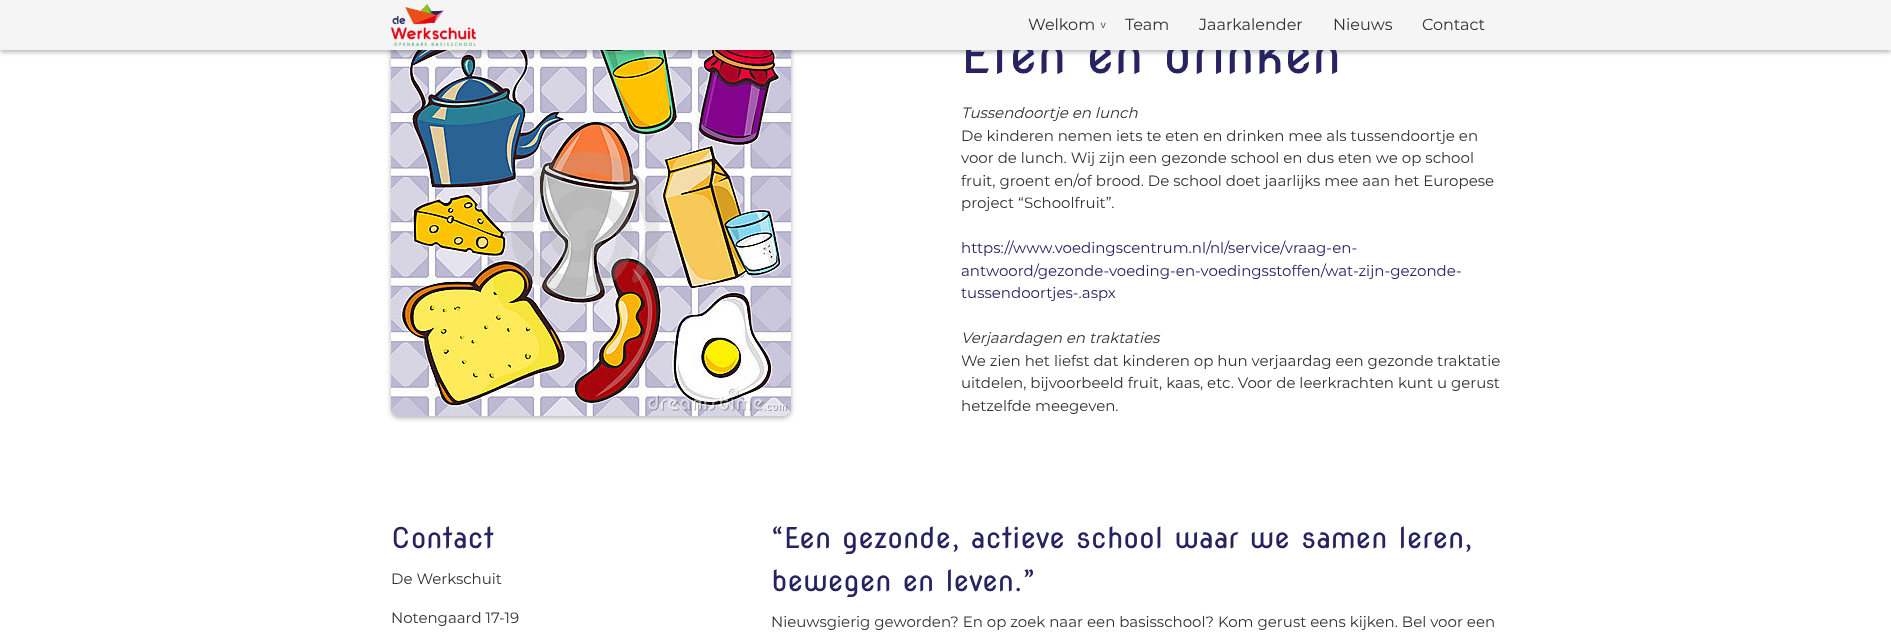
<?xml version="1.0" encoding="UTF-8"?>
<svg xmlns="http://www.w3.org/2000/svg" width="1891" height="633">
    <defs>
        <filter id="blur1" x="-50%" y="-200%" width="200%" height="500%"><feGaussianBlur stdDeviation="2.5"/></filter>
    </defs>
    <rect width="100%" height="100%" fill="#FFFFFF"/>
    <rect x="391" y="19" width="400" height="399" rx="8" fill="#000000" fill-opacity="0.3" filter="url(#blur1)"/>
    <image x="391" y="50" width="400" height="366" href="img_02.png"/>
    <rect x="0" y="2" width="1891" height="50" fill="#000000" fill-opacity="0.3" filter="url(#blur1)"/>
    <text x="961" y="73" font-family="Nova Round" font-size="51.5" fill="#272361">Eten en drinken</text>
    <rect x="0" y="0" width="1891" height="50" fill="#F5F5F5"/>
    <image x="390" y="4" width="86" height="42" href="img_01.png"/>
    <text x="1028" y="30" font-family="Montserrat" font-size="16" font-weight="100" fill="#323232">Welkom</text>
    <text x="1099" y="22" transform="rotate(90 1099 22)" font-family="Montserrat" font-size="12" font-weight="100" fill="#323232">&gt;</text>
    <text x="1125" y="30" font-family="Montserrat" font-size="16" font-weight="100" fill="#323232">Team</text>
    <text x="1199" y="30" font-family="Montserrat" font-size="16" font-weight="100" fill="#323232">Jaarkalender</text>
    <text x="1333" y="30" font-family="Montserrat" font-size="16" font-weight="100" fill="#323232">Nieuws</text>
    <text x="1422" y="30" font-family="Montserrat" font-size="16" font-weight="100" fill="#323232">Contact</text>
    <text x="961" y="118" font-family="Montserrat" font-size="15" font-weight="100" font-style="italic" fill="#323232">Tussendoortje en lunch</text>
    <text font-family="Montserrat" font-size="15" font-weight="100" fill="#323232">
        <tspan x="961" y="141">De kinderen nemen iets te eten en drinken mee als tussendoortje en</tspan>
        <tspan x="961" y="163">voor de lunch. Wij zijn een gezonde school en dus eten we op school</tspan>
        <tspan x="961" y="186">fruit, groent en/of brood. De school doet jaarlijks mee aan het Europese</tspan>
        <tspan x="961" y="208">project “Schoolfruit”.</tspan>
    </text>
    <text font-family="Montserrat" font-size="15" font-weight="100" fill="#272361">
        <tspan x="961" y="253">https://www.voedingscentrum.nl/nl/service/vraag-en-</tspan>
        <tspan x="961" y="276">antwoord/gezonde-voeding-en-voedingsstoffen/wat-zijn-gezonde-</tspan>
        <tspan x="961" y="298">tussendoortjes-.aspx</tspan>
    </text>
    <text x="961" y="343" font-family="Montserrat" font-size="15" font-weight="100" font-style="italic" fill="#323232">Verjaardagen en traktaties</text>
    <text font-family="Montserrat" font-size="15" font-weight="100" fill="#323232">
        <tspan x="961" y="366">We zien het liefst dat kinderen op hun verjaardag een gezonde traktatie</tspan>
        <tspan x="961" y="388">uitdelen, bijvoorbeeld fruit, kaas, etc. Voor de leerkrachten kunt u gerust</tspan>
        <tspan x="961" y="411">hetzelfde meegeven.</tspan>
    </text>
    <text x="391" y="548" font-family="Nova Round" font-size="28.6" fill="#272361">Contact</text>
    <text x="391" y="584" font-family="Montserrat" font-size="15" font-weight="100" fill="#323232">De Werkschuit</text>
    <text x="391" y="623" font-family="Montserrat" font-size="15" font-weight="100" fill="#323232">Notengaard 17-19</text>
    <text font-family="Nova Round" font-size="28.6" fill="#272361">
        <tspan x="771" y="548">“Een gezonde, actieve school waar we samen leren,</tspan>
        <tspan x="771" y="591">bewegen en leven.”</tspan>
    </text>
    <text x="771" y="627" font-family="Montserrat" font-size="15" font-weight="100" fill="#323232">Nieuwsgierig geworden? En op zoek naar een basisschool? Kom gerust eens kijken. Bel voor een</text>
</svg>
